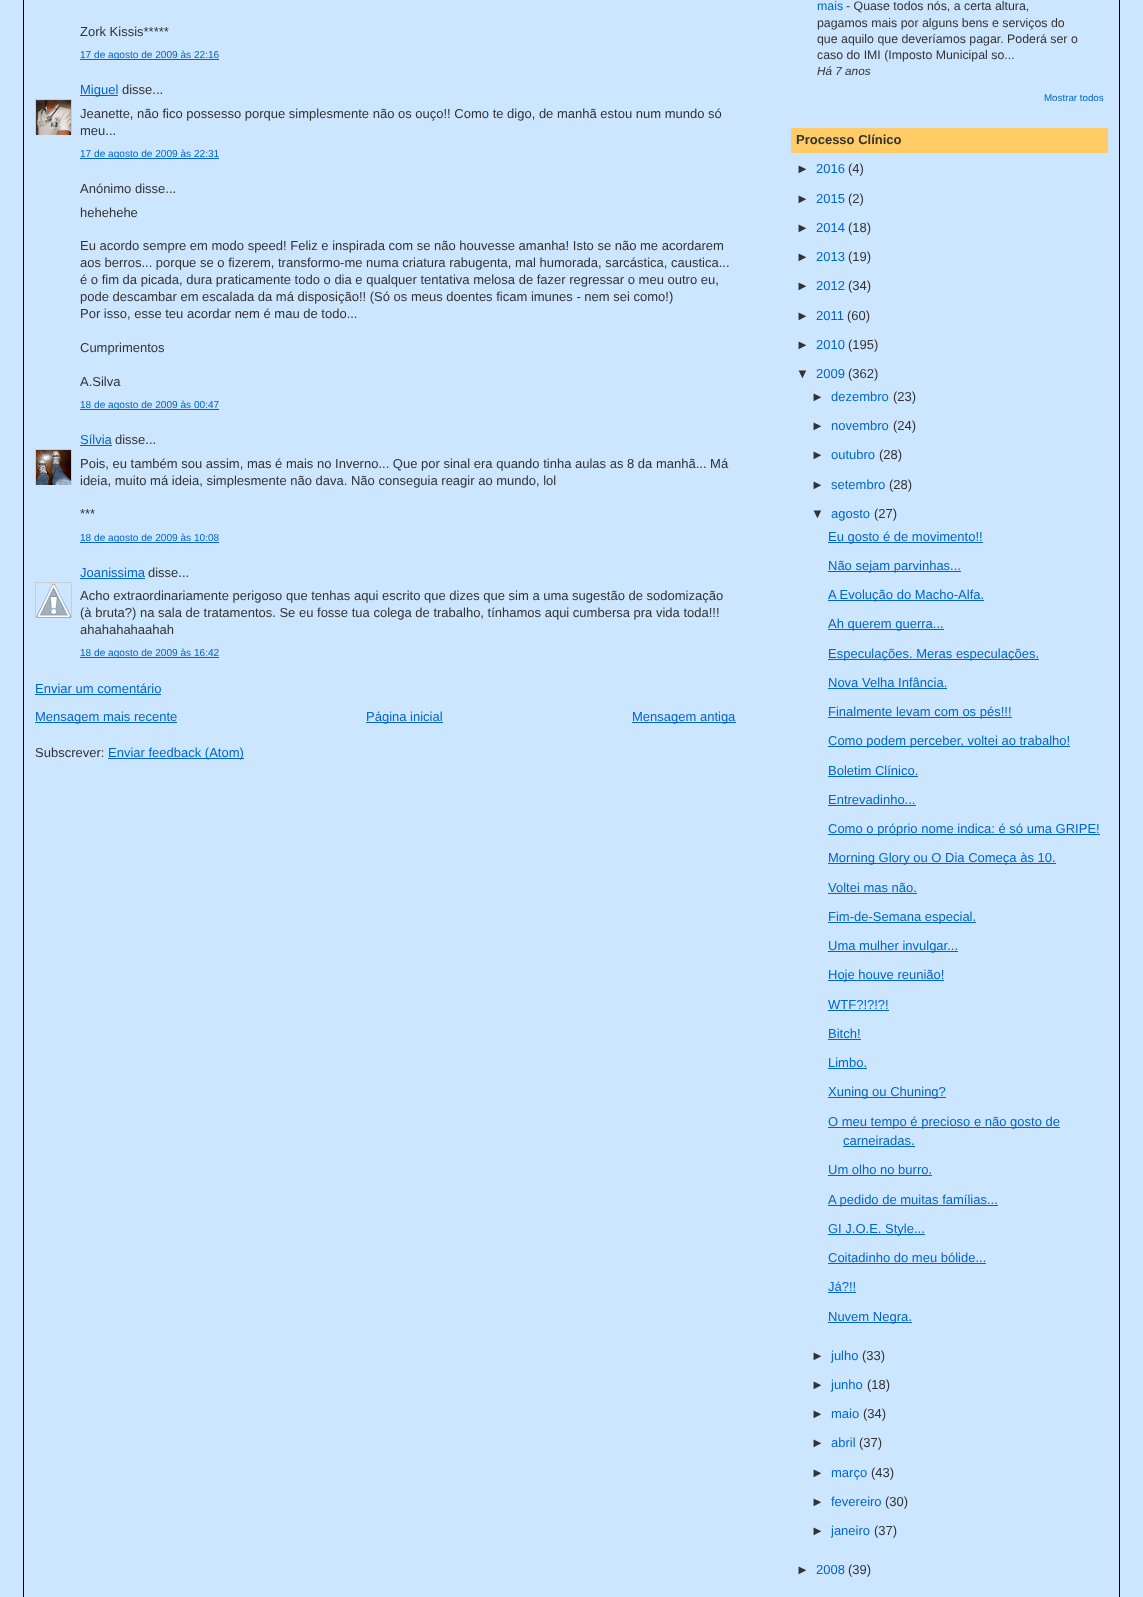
<?xml version="1.0" encoding="UTF-8"?>
<svg xmlns="http://www.w3.org/2000/svg" width="1143" height="1597">
    <defs>
        <clipPath id="clip1"><rect x="35" y="99" width="37" height="36"/></clipPath>
        <clipPath id="clip2"><rect x="35" y="449" width="37" height="36"/></clipPath>
        <clipPath id="clip3"><rect x="35" y="582" width="37" height="36"/></clipPath>
    </defs>
    <rect width="100%" height="100%" fill="#CDE6FF"/>
    <rect x="1119" y="0" width="1" height="1597" fill="#000000"/>
    <rect x="23" y="0" width="1" height="1597" fill="#000000"/>
    <text x="80" y="36" font-family="Liberation Sans" font-size="13" fill="#333333">Zork Kissis*****</text>
    <rect x="80" y="59" width="139" height="1" fill="#0066CC"/>
    <text x="80" y="58" font-family="Liberation Sans" font-size="10.1" fill="#0066CC">17 de agosto de 2009 às 22:16</text>
    <rect x="80" y="95" width="38" height="1" fill="#0066CC"/>
    <text x="80" y="94" font-family="Liberation Sans" font-size="13" fill="#0066CC">Miguel</text>
    <text x="122" y="94" font-family="Liberation Sans" font-size="13" fill="#333333">disse...</text>
    <g clip-path="url(#clip1)">
        <rect x="35.5" y="99.5" width="36" height="36" fill="none" stroke="#CCCCCC"/>
    </g>
    <image x="36" y="100" width="35" height="35" href="img_01.png"/>
    <text font-family="Liberation Sans" font-size="13" fill="#333333">
        <tspan x="80" y="118">Jeanette, não fico possesso porque simplesmente não os ouço!! Como te digo, de manhã estou num mundo só</tspan>
        <tspan x="80" y="135">meu...</tspan>
    </text>
    <rect x="80" y="158" width="139" height="1" fill="#0066CC"/>
    <text x="80" y="157" font-family="Liberation Sans" font-size="10.1" fill="#0066CC">17 de agosto de 2009 às 22:31</text>
    <text font-family="Liberation Sans" font-size="13" fill="#333333">
        <tspan x="80" y="193">Anónimo disse...</tspan>
        <tspan x="80" y="217">hehehehe</tspan>
    </text>
    <text font-family="Liberation Sans" font-size="13" fill="#333333">
        <tspan x="80" y="250">Eu acordo sempre em modo speed! Feliz e inspirada com se não houvesse amanha! Isto se não me acordarem</tspan>
        <tspan x="80" y="267">aos berros... porque se o fizerem, transformo-me numa criatura rabugenta, mal humorada, sarcástica, caustica...</tspan>
        <tspan x="80" y="284">é o fim da picada, dura praticamente todo o dia e qualquer tentativa melosa de fazer regressar o meu outro eu,</tspan>
        <tspan x="80" y="301">pode descambar em escalada da má disposição!! (Só os meus doentes ficam imunes - nem sei como!)</tspan>
        <tspan x="80" y="318">Por isso, esse teu acordar nem é mau de todo...</tspan>
    </text>
    <text x="80" y="352" font-family="Liberation Sans" font-size="13" fill="#333333">Cumprimentos</text>
    <text x="80" y="386" font-family="Liberation Sans" font-size="13" fill="#333333">A.Silva</text>
    <rect x="80" y="409" width="139" height="1" fill="#0066CC"/>
    <text x="80" y="408" font-family="Liberation Sans" font-size="10.1" fill="#0066CC">18 de agosto de 2009 às 00:47</text>
    <text x="80" y="444" font-family="Liberation Sans" font-size="13" fill="#0066CC">Sílvia</text>
    <rect x="80" y="445" width="32" height="1" fill="#0066CC"/>
    <text x="115" y="444" font-family="Liberation Sans" font-size="13" fill="#333333">disse...</text>
    <g clip-path="url(#clip2)">
        <rect x="35.5" y="449.5" width="36" height="36" fill="none" stroke="#CCCCCC"/>
    </g>
    <image x="36" y="450" width="35" height="35" href="img_02.png"/>
    <text font-family="Liberation Sans" font-size="13" fill="#333333">
        <tspan x="80" y="468">Pois, eu também sou assim, mas é mais no Inverno... Que por sinal era quando tinha aulas as 8 da manhã... Má</tspan>
        <tspan x="80" y="485">ideia, muito má ideia, simplesmente não dava. Não conseguia reagir ao mundo, lol</tspan>
    </text>
    <text x="80" y="518" font-family="Liberation Sans" font-size="13" fill="#333333">***</text>
    <rect x="80" y="542" width="139" height="1" fill="#0066CC"/>
    <text x="80" y="541" font-family="Liberation Sans" font-size="10.1" fill="#0066CC">18 de agosto de 2009 às 10:08</text>
    <text x="80" y="577" font-family="Liberation Sans" font-size="13" fill="#0066CC">Joanissima</text>
    <rect x="80" y="578" width="65" height="1" fill="#0066CC"/>
    <text x="148" y="577" font-family="Liberation Sans" font-size="13" fill="#333333">disse...</text>
    <g clip-path="url(#clip3)">
        <rect x="35.5" y="582.5" width="36" height="36" fill="none" stroke="#CCCCCC"/>
    </g>
    <image x="36" y="583" width="35" height="35" href="img_03.png"/>
    <text font-family="Liberation Sans" font-size="13" fill="#333333">
        <tspan x="80" y="600">Acho extraordinariamente perigoso que tenhas aqui escrito que dizes que sim a uma sugestão de sodomização</tspan>
        <tspan x="80" y="617">(à bruta?) na sala de tratamentos. Se eu fosse tua colega de trabalho, tínhamos aqui cumbersa pra vida toda!!!</tspan>
        <tspan x="80" y="634">ahahahahaahah</tspan>
    </text>
    <rect x="80" y="657" width="139" height="1" fill="#0066CC"/>
    <text x="80" y="656" font-family="Liberation Sans" font-size="10.1" fill="#0066CC">18 de agosto de 2009 às 16:42</text>
    <text x="35" y="693" font-family="Liberation Sans" font-size="13" fill="#0066CC">Enviar um comentário</text>
    <rect x="35" y="694" width="126" height="1" fill="#0066CC"/>
    <rect x="35" y="722" width="142" height="1" fill="#0066CC"/>
    <text x="35" y="721" font-family="Liberation Sans" font-size="13" fill="#0066CC">Mensagem mais recente</text>
    <rect x="366" y="722" width="77" height="1" fill="#0066CC"/>
    <text x="366" y="721" font-family="Liberation Sans" font-size="13" fill="#0066CC">Página inicial</text>
    <rect x="632" y="722" width="104" height="1" fill="#0066CC"/>
    <text x="632" y="721" font-family="Liberation Sans" font-size="13" fill="#0066CC">Mensagem antiga</text>
    <text x="35" y="757" font-family="Liberation Sans" font-size="13" fill="#333333">Subscrever:</text>
    <rect x="108" y="758" width="136" height="1" fill="#0066CC"/>
    <text x="108" y="757" font-family="Liberation Sans" font-size="13" fill="#0066CC">Enviar feedback (Atom)</text>
    <text x="817" y="10" font-family="Liberation Sans" font-size="12.35" fill="#0066CC">mais</text>
    <text x="846" y="10" font-family="Liberation Sans" font-size="12.35" fill="#333333">- Quase todos nós, a certa altura,</text>
    <text font-family="Liberation Sans" font-size="12.35" fill="#333333">
        <tspan x="817" y="27">pagamos mais por alguns bens e serviços do</tspan>
        <tspan x="817" y="43">que aquilo que deveríamos pagar. Poderá ser o</tspan>
        <tspan x="817" y="59">caso do IMI (Imposto Municipal so...</tspan>
    </text>
    <text x="817" y="75" font-family="Liberation Sans" font-size="11.75" font-style="italic" fill="#333333">Há 7 anos</text>
    <text x="1044" y="101" font-family="Liberation Sans" font-size="9.75" fill="#0066CC">Mostrar todos</text>
    <rect x="791" y="128" width="317" height="25" fill="#FFCC66"/>
    <text x="796" y="144" font-family="Liberation Sans" font-size="13" font-weight="700" fill="#333333">Processo Clínico</text>
    <text x="796" y="173" font-family="Liberation Sans" font-size="13" fill="#333333">►</text>
    <text x="816" y="173" font-family="Liberation Sans" font-size="13" fill="#0066CC">2016</text>
    <text x="848" y="173" font-family="Liberation Sans" font-size="13" fill="#333333">(4)</text>
    <text x="796" y="203" font-family="Liberation Sans" font-size="13" fill="#333333">►</text>
    <text x="816" y="203" font-family="Liberation Sans" font-size="13" fill="#0066CC">2015</text>
    <text x="848" y="203" font-family="Liberation Sans" font-size="13" fill="#333333">(2)</text>
    <text x="796" y="232" font-family="Liberation Sans" font-size="13" fill="#333333">►</text>
    <text x="816" y="232" font-family="Liberation Sans" font-size="13" fill="#0066CC">2014</text>
    <text x="848" y="232" font-family="Liberation Sans" font-size="13" fill="#333333">(18)</text>
    <text x="796" y="261" font-family="Liberation Sans" font-size="13" fill="#333333">►</text>
    <text x="816" y="261" font-family="Liberation Sans" font-size="13" fill="#0066CC">2013</text>
    <text x="848" y="261" font-family="Liberation Sans" font-size="13" fill="#333333">(19)</text>
    <text x="796" y="290" font-family="Liberation Sans" font-size="13" fill="#333333">►</text>
    <text x="816" y="290" font-family="Liberation Sans" font-size="13" fill="#0066CC">2012</text>
    <text x="848" y="290" font-family="Liberation Sans" font-size="13" fill="#333333">(34)</text>
    <text x="796" y="320" font-family="Liberation Sans" font-size="13" fill="#333333">►</text>
    <text x="816" y="320" font-family="Liberation Sans" font-size="13" fill="#0066CC">2011</text>
    <text x="847" y="320" font-family="Liberation Sans" font-size="13" fill="#333333">(60)</text>
    <text x="796" y="349" font-family="Liberation Sans" font-size="13" fill="#333333">►</text>
    <text x="816" y="349" font-family="Liberation Sans" font-size="13" fill="#0066CC">2010</text>
    <text x="848" y="349" font-family="Liberation Sans" font-size="13" fill="#333333">(195)</text>
    <text x="796" y="378" font-family="Liberation Sans" font-size="13" fill="#333333">▼</text>
    <text x="816" y="378" font-family="Liberation Sans" font-size="13" fill="#0066CC">2009</text>
    <text x="848" y="378" font-family="Liberation Sans" font-size="13" fill="#333333">(362)</text>
    <text x="811" y="401" font-family="Liberation Sans" font-size="13" fill="#333333">►</text>
    <text x="831" y="401" font-family="Liberation Sans" font-size="13" fill="#0066CC">dezembro</text>
    <text x="893" y="401" font-family="Liberation Sans" font-size="13" fill="#333333">(23)</text>
    <text x="811" y="430" font-family="Liberation Sans" font-size="13" fill="#333333">►</text>
    <text x="831" y="430" font-family="Liberation Sans" font-size="13" fill="#0066CC">novembro</text>
    <text x="893" y="430" font-family="Liberation Sans" font-size="13" fill="#333333">(24)</text>
    <text x="811" y="459" font-family="Liberation Sans" font-size="13" fill="#333333">►</text>
    <text x="831" y="459" font-family="Liberation Sans" font-size="13" fill="#0066CC">outubro</text>
    <text x="879" y="459" font-family="Liberation Sans" font-size="13" fill="#333333">(28)</text>
    <text x="811" y="489" font-family="Liberation Sans" font-size="13" fill="#333333">►</text>
    <text x="831" y="489" font-family="Liberation Sans" font-size="13" fill="#0066CC">setembro</text>
    <text x="889" y="489" font-family="Liberation Sans" font-size="13" fill="#333333">(28)</text>
    <text x="811" y="518" font-family="Liberation Sans" font-size="13" fill="#333333">▼</text>
    <text x="831" y="518" font-family="Liberation Sans" font-size="13" fill="#0066CC">agosto</text>
    <text x="874" y="518" font-family="Liberation Sans" font-size="13" fill="#333333">(27)</text>
    <rect x="828" y="542" width="155" height="1" fill="#0066CC"/>
    <text x="828" y="541" font-family="Liberation Sans" font-size="13" fill="#0066CC">Eu gosto é de movimento!!</text>
    <rect x="828" y="571" width="133" height="1" fill="#0066CC"/>
    <text x="828" y="570" font-family="Liberation Sans" font-size="13" fill="#0066CC">Não sejam parvinhas...</text>
    <rect x="828" y="600" width="156" height="1" fill="#0066CC"/>
    <text x="828" y="599" font-family="Liberation Sans" font-size="13" fill="#0066CC">A Evolução do Macho-Alfa.</text>
    <rect x="828" y="629" width="116" height="1" fill="#0066CC"/>
    <text x="828" y="628" font-family="Liberation Sans" font-size="13" fill="#0066CC">Ah querem guerra...</text>
    <rect x="828" y="659" width="211" height="1" fill="#0066CC"/>
    <text x="828" y="658" font-family="Liberation Sans" font-size="13" fill="#0066CC">Especulações. Meras especulações.</text>
    <text x="828" y="687" font-family="Liberation Sans" font-size="13" fill="#0066CC">Nova Velha Infância.</text>
    <rect x="828" y="688" width="119" height="1" fill="#0066CC"/>
    <rect x="828" y="717" width="184" height="1" fill="#0066CC"/>
    <text x="828" y="716" font-family="Liberation Sans" font-size="13" fill="#0066CC">Finalmente levam com os pés!!!</text>
    <rect x="828" y="746" width="242" height="1" fill="#0066CC"/>
    <text x="828" y="745" font-family="Liberation Sans" font-size="13" fill="#0066CC">Como podem perceber, voltei ao trabalho!</text>
    <text x="828" y="775" font-family="Liberation Sans" font-size="13" fill="#0066CC">Boletim Clínico.</text>
    <rect x="828" y="776" width="90" height="1" fill="#0066CC"/>
    <text x="828" y="804" font-family="Liberation Sans" font-size="13" fill="#0066CC">Entrevadinho...</text>
    <rect x="828" y="805" width="88" height="1" fill="#0066CC"/>
    <rect x="828" y="834" width="272" height="1" fill="#0066CC"/>
    <text x="828" y="833" font-family="Liberation Sans" font-size="13" fill="#0066CC">Como o próprio nome indica: é só uma GRIPE!</text>
    <rect x="828" y="863" width="228" height="1" fill="#0066CC"/>
    <text x="828" y="862" font-family="Liberation Sans" font-size="13" fill="#0066CC">Morning Glory ou O Dia Começa às 10.</text>
    <text x="828" y="892" font-family="Liberation Sans" font-size="13" fill="#0066CC">Voltei mas não.</text>
    <rect x="828" y="893" width="89" height="1" fill="#0066CC"/>
    <rect x="828" y="922" width="148" height="1" fill="#0066CC"/>
    <text x="828" y="921" font-family="Liberation Sans" font-size="13" fill="#0066CC">Fim-de-Semana especial.</text>
    <rect x="828" y="951" width="130" height="1" fill="#0066CC"/>
    <text x="828" y="950" font-family="Liberation Sans" font-size="13" fill="#0066CC">Uma mulher invulgar...</text>
    <rect x="828" y="980" width="116" height="1" fill="#0066CC"/>
    <text x="828" y="979" font-family="Liberation Sans" font-size="13" fill="#0066CC">Hoje houve reunião!</text>
    <text x="828" y="1009" font-family="Liberation Sans" font-size="13" fill="#0066CC">WTF?!?!?!</text>
    <rect x="828" y="1010" width="61" height="1" fill="#0066CC"/>
    <text x="828" y="1038" font-family="Liberation Sans" font-size="13" fill="#0066CC">Bitch!</text>
    <rect x="828" y="1039" width="33" height="1" fill="#0066CC"/>
    <text x="828" y="1067" font-family="Liberation Sans" font-size="13" fill="#0066CC">Limbo.</text>
    <rect x="828" y="1068" width="39" height="1" fill="#0066CC"/>
    <rect x="828" y="1097" width="118" height="1" fill="#0066CC"/>
    <text x="828" y="1096" font-family="Liberation Sans" font-size="13" fill="#0066CC">Xuning ou Chuning?</text>
    <rect x="828" y="1127" width="232" height="1" fill="#0066CC"/>
    <text x="828" y="1126" font-family="Liberation Sans" font-size="13" fill="#0066CC">O meu tempo é precioso e não gosto de</text>
    <text x="843" y="1145" font-family="Liberation Sans" font-size="13" fill="#0066CC">carneiradas.</text>
    <rect x="843" y="1146" width="72" height="1" fill="#0066CC"/>
    <text x="828" y="1174" font-family="Liberation Sans" font-size="13" fill="#0066CC">Um olho no burro.</text>
    <rect x="828" y="1175" width="104" height="1" fill="#0066CC"/>
    <rect x="828" y="1205" width="170" height="1" fill="#0066CC"/>
    <text x="828" y="1204" font-family="Liberation Sans" font-size="13" fill="#0066CC">A pedido de muitas famílias...</text>
    <rect x="828" y="1234" width="97" height="1" fill="#0066CC"/>
    <text x="828" y="1233" font-family="Liberation Sans" font-size="13" fill="#0066CC">GI J.O.E. Style...</text>
    <text x="828" y="1262" font-family="Liberation Sans" font-size="13" fill="#0066CC">Coitadinho do meu bólide...</text>
    <rect x="828" y="1263" width="158" height="1" fill="#0066CC"/>
    <text x="828" y="1291" font-family="Liberation Sans" font-size="13" fill="#0066CC">Já?!!</text>
    <rect x="828" y="1292" width="28" height="1" fill="#0066CC"/>
    <rect x="828" y="1322" width="84" height="1" fill="#0066CC"/>
    <text x="828" y="1321" font-family="Liberation Sans" font-size="13" fill="#0066CC">Nuvem Negra.</text>
    <text x="811" y="1360" font-family="Liberation Sans" font-size="13" fill="#333333">►</text>
    <text x="831" y="1360" font-family="Liberation Sans" font-size="13" fill="#0066CC">julho</text>
    <text x="862" y="1360" font-family="Liberation Sans" font-size="13" fill="#333333">(33)</text>
    <text x="811" y="1389" font-family="Liberation Sans" font-size="13" fill="#333333">►</text>
    <text x="831" y="1389" font-family="Liberation Sans" font-size="13" fill="#0066CC">junho</text>
    <text x="867" y="1389" font-family="Liberation Sans" font-size="13" fill="#333333">(18)</text>
    <text x="811" y="1418" font-family="Liberation Sans" font-size="13" fill="#333333">►</text>
    <text x="831" y="1418" font-family="Liberation Sans" font-size="13" fill="#0066CC">maio</text>
    <text x="863" y="1418" font-family="Liberation Sans" font-size="13" fill="#333333">(34)</text>
    <text x="811" y="1447" font-family="Liberation Sans" font-size="13" fill="#333333">►</text>
    <text x="831" y="1447" font-family="Liberation Sans" font-size="13" fill="#0066CC">abril</text>
    <text x="859" y="1447" font-family="Liberation Sans" font-size="13" fill="#333333">(37)</text>
    <text x="811" y="1477" font-family="Liberation Sans" font-size="13" fill="#333333">►</text>
    <text x="831" y="1477" font-family="Liberation Sans" font-size="13" fill="#0066CC">março</text>
    <text x="871" y="1477" font-family="Liberation Sans" font-size="13" fill="#333333">(43)</text>
    <text x="811" y="1506" font-family="Liberation Sans" font-size="13" fill="#333333">►</text>
    <text x="831" y="1506" font-family="Liberation Sans" font-size="13" fill="#0066CC">fevereiro</text>
    <text x="885" y="1506" font-family="Liberation Sans" font-size="13" fill="#333333">(30)</text>
    <text x="811" y="1535" font-family="Liberation Sans" font-size="13" fill="#333333">►</text>
    <text x="831" y="1535" font-family="Liberation Sans" font-size="13" fill="#0066CC">janeiro</text>
    <text x="874" y="1535" font-family="Liberation Sans" font-size="13" fill="#333333">(37)</text>
    <text x="796" y="1574" font-family="Liberation Sans" font-size="13" fill="#333333">►</text>
    <text x="816" y="1574" font-family="Liberation Sans" font-size="13" fill="#0066CC">2008</text>
    <text x="848" y="1574" font-family="Liberation Sans" font-size="13" fill="#333333">(39)</text>
</svg>
